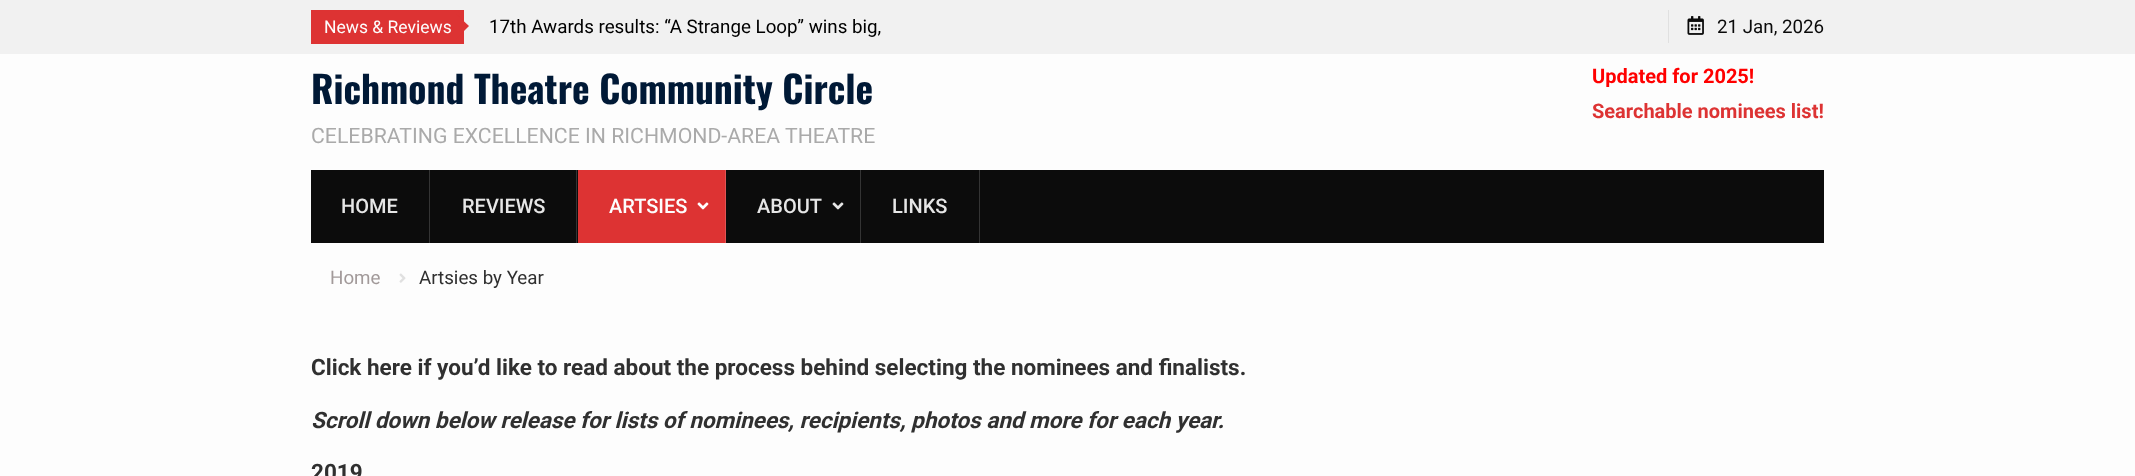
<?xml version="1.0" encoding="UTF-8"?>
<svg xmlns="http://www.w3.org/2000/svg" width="2135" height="476">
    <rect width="100%" height="100%" fill="#FDFDFD"/>
    <rect x="0" y="0" width="2135" height="54" fill="#F1F1F1"/>
    <rect x="311" y="10" width="153" height="34" fill="#DD3333"/>
    <text x="324" y="33" font-family="Roboto" font-size="17.5" fill="#FDFDFD">News &amp; Reviews</text>
    <path d="M 456 39 V 14 L 469 26 Z" fill="#DD3333"/>
    <text x="489" y="33" font-family="Roboto" font-size="18.75" fill="#000000">17th Awards results: “A Strange Loop” wins big,</text>
    <rect x="1668" y="10" width="1" height="33" fill="#E0E0E0"/>
    <image x="1687" y="16" width="17" height="19" href="img_01.png"/>
    <text x="1717" y="33" font-family="Roboto" font-size="18.75" fill="#0A0A0A">21 Jan, 2026</text>
    <text x="311" y="104" font-family="Oswald" font-size="37.5" font-weight="700" fill="#001936">Richmond Theatre Community Circle</text>
    <text x="311" y="143" font-family="Roboto" font-size="21.25" fill="#AAAAAA">CELEBRATING EXCELLENCE IN RICHMOND-AREA THEATRE</text>
    <text x="1592" y="83" font-family="Roboto" font-size="20" font-weight="700" fill="#FF0000">Updated for 2025!</text>
    <text x="1592" y="118" font-family="Roboto" font-size="20" font-weight="700" fill="#DD3333">Searchable nominees list!</text>
    <rect x="311" y="170" width="1513" height="73" fill="#0C0C0C"/>
    <rect x="429" y="170" width="1" height="73" fill="#343434"/>
    <text x="341" y="213" font-family="Roboto" font-size="20" font-weight="500" fill="#E6E6E6">HOME</text>
    <rect x="576" y="170" width="1" height="73" fill="#343434"/>
    <text x="462" y="213" font-family="Roboto" font-size="20" font-weight="500" fill="#E6E6E6">REVIEWS</text>
    <rect x="578" y="170" width="147" height="73" fill="#DD3333"/>
    <rect x="725" y="170" width="1" height="73" fill="#E25454"/>
    <text x="609" y="213" font-family="Roboto" font-size="20" font-weight="500" fill="#FDFDFD">ARTSIES</text>
    <image x="697" y="202" width="12" height="8" href="img_02.png"/>
    <rect x="860" y="170" width="1" height="73" fill="#343434"/>
    <text x="757" y="213" font-family="Roboto" font-size="20" font-weight="500" fill="#E6E6E6">ABOUT</text>
    <image x="832" y="202" width="12" height="8" href="img_03.png"/>
    <rect x="979" y="170" width="1" height="73" fill="#343434"/>
    <text x="892" y="213" font-family="Roboto" font-size="20" font-weight="500" fill="#E6E6E6">LINKS</text>
    <text x="330" y="284" font-family="Roboto" font-size="18.75" fill="#A29A9A">Home</text>
    <image x="399" y="273" width="7" height="10" href="img_04.png"/>
    <text x="419" y="284" font-family="Roboto" font-size="18.75" fill="#303030">Artsies by Year</text>
    <text x="311" y="375" font-family="Roboto" font-size="22.5" font-weight="700" fill="#303030">Click here if you’d like to read about the process behind selecting the nominees and finalists.</text>
    <text x="311" y="428" font-family="Roboto" font-size="22.5" font-weight="700" font-style="italic" fill="#303030">Scroll down below release for lists of nominees, recipients, photos and more for each year.</text>
    <text x="311" y="480" font-family="Roboto" font-size="22.5" font-weight="700" fill="#303030">2019</text>
</svg>
